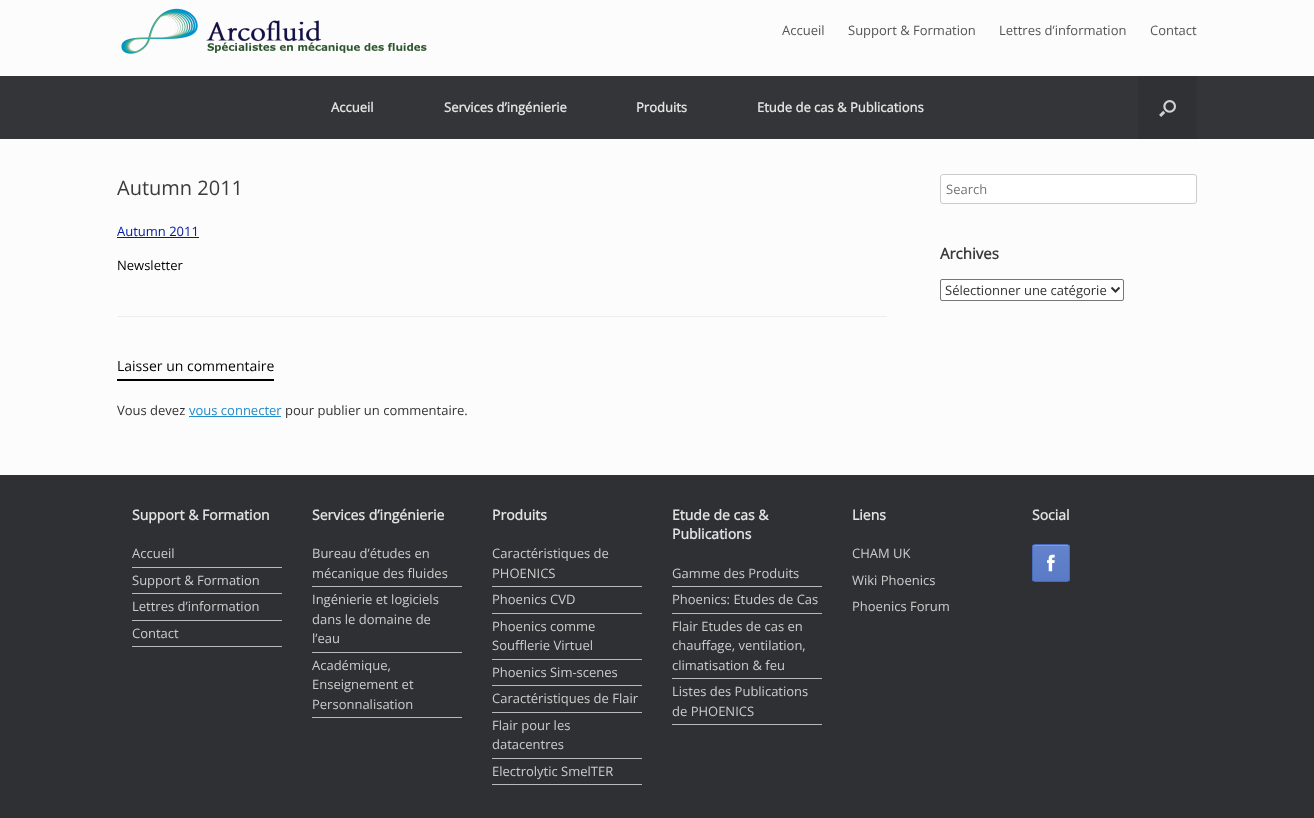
<?xml version="1.0" encoding="UTF-8"?>
<svg xmlns="http://www.w3.org/2000/svg" width="1314" height="818">
    <defs>
        <clipPath id="clip1"><rect x="1032" y="544" width="38" height="38" rx="3"/></clipPath>
        <linearGradient id="g1" gradientUnits="userSpaceOnUse" x1="1033" y1="581" x2="1033" y2="545"><stop offset="0" stop-color="#597AC7"/><stop offset="1" stop-color="#6483CB"/></linearGradient>
    </defs>
    <rect width="100%" height="100%" fill="#2F3033"/>
    <rect x="0" y="0" width="1314" height="76" fill="#FCFCFC"/>
    <image x="121" y="8" width="306" height="46" href="img_01.png"/>
    <text x="782" y="35" font-family="Open Sans" font-size="13" fill="#555555">Accueil</text>
    <text x="848" y="35" font-family="Open Sans" font-size="13" fill="#555555">Support &amp; Formation</text>
    <text x="999" y="35" font-family="Open Sans" font-size="13" fill="#555555">Lettres d’information</text>
    <text x="1150" y="35" font-family="Open Sans" font-size="13" fill="#555555">Contact</text>
    <rect x="0" y="76" width="1314" height="63" fill="#343538"/>
    <text x="331" y="112" font-family="Open Sans" font-size="13" font-weight="700" fill="#E2E2E2">Accueil</text>
    <text x="444" y="112" font-family="Open Sans" font-size="13" font-weight="700" fill="#E2E2E2">Services d’ingénierie</text>
    <text x="636" y="112" font-family="Open Sans" font-size="13" font-weight="700" fill="#E2E2E2">Produits</text>
    <text x="757" y="112" font-family="Open Sans" font-size="13" font-weight="700" fill="#E2E2E2">Etude de cas &amp; Publications</text>
    <rect x="1138" y="76" width="59" height="63" fill="#303134"/>
    <image x="1159" y="100" width="17" height="17" href="img_02.png"/>
    <rect x="0" y="139" width="1314" height="336" fill="#FCFCFC"/>
    <rect x="117" y="316" width="770" height="1" fill="#EEEEEE"/>
    <text x="117" y="195" font-family="Open Sans" font-size="20" fill="#3B3B3B">Autumn 2011</text>
    <text x="117" y="236" font-family="Open Sans" font-size="13" fill="#011B9E">Autumn 2011</text>
    <rect x="117" y="237" width="82" height="1" fill="#011B9E"/>
    <text x="117" y="270" font-family="Open Sans" font-size="13" fill="#000000">Newsletter</text>
    <rect x="117" y="379" width="157" height="2" fill="#000000"/>
    <text x="117" y="371" font-family="Open Sans" font-size="14" fill="#000000">Laisser un commentaire</text>
    <text x="117" y="415" font-family="Open Sans" font-size="13" fill="#333333">Vous devez</text>
    <text x="189" y="415" font-family="Open Sans" font-size="13" fill="#248CC8">vous connecter</text>
    <rect x="189" y="416" width="92" height="1" fill="#248CC8"/>
    <text x="285" y="415" font-family="Open Sans" font-size="13" fill="#333333">pour publier un commentaire.</text>
    <rect x="940.5" y="174.5" width="256" height="29" rx="2.5" fill="#FFFFFF" stroke="#CCCCCC"/>
    <text x="946" y="194" font-family="Open Sans" font-size="13" fill="#757575">Search</text>
    <text x="940" y="259" font-family="Open Sans" font-size="15" font-weight="700" fill="#3B3B3B">Archives</text>
    <rect x="940.5" y="279.5" width="183" height="21" rx="1.5" fill="#FFFFFF" stroke="#767676"/>
    <path d="M 1111.5 287.5 L 1115.5 291.5 L 1119.5 287.5" fill="none" stroke="#333333" stroke-width="2"/>
    <text x="945" y="295" font-family="Open Sans" font-size="13" fill="#333333">Sélectionner une catégorie</text>
    <text x="132" y="520" font-family="Open Sans" font-size="14" font-weight="700" fill="#E2E2E2">Support &amp; Formation</text>
    <rect x="132" y="567" width="150" height="1" fill="#B9B9B9"/>
    <text x="132" y="558" font-family="Open Sans" font-size="13" fill="#CCCCCC">Accueil</text>
    <rect x="132" y="593" width="150" height="1" fill="#B9B9B9"/>
    <text x="132" y="585" font-family="Open Sans" font-size="13" fill="#CCCCCC">Support &amp; Formation</text>
    <rect x="132" y="620" width="150" height="1" fill="#B9B9B9"/>
    <text x="132" y="611" font-family="Open Sans" font-size="13" fill="#CCCCCC">Lettres d’information</text>
    <rect x="132" y="646" width="150" height="1" fill="#B9B9B9"/>
    <text x="132" y="638" font-family="Open Sans" font-size="13" fill="#CCCCCC">Contact</text>
    <text x="312" y="520" font-family="Open Sans" font-size="14" font-weight="700" fill="#E2E2E2">Services d’ingénierie</text>
    <rect x="312" y="586" width="150" height="1" fill="#B9B9B9"/>
    <text font-family="Open Sans" font-size="13" fill="#CCCCCC">
        <tspan x="312" y="558">Bureau d’études en</tspan>
        <tspan x="312" y="578">mécanique des fluides</tspan>
    </text>
    <rect x="312" y="652" width="150" height="1" fill="#B9B9B9"/>
    <text font-family="Open Sans" font-size="13" fill="#CCCCCC">
        <tspan x="312" y="604">Ingénierie et logiciels</tspan>
        <tspan x="312" y="624">dans le domaine de</tspan>
        <tspan x="312" y="643">l’eau</tspan>
    </text>
    <rect x="312" y="717" width="150" height="1" fill="#B9B9B9"/>
    <text font-family="Open Sans" font-size="13" fill="#CCCCCC">
        <tspan x="312" y="670">Académique,</tspan>
        <tspan x="312" y="689">Enseignement et</tspan>
        <tspan x="312" y="709">Personnalisation</tspan>
    </text>
    <text x="492" y="520" font-family="Open Sans" font-size="14" font-weight="700" fill="#E2E2E2">Produits</text>
    <rect x="492" y="586" width="150" height="1" fill="#B9B9B9"/>
    <text font-family="Open Sans" font-size="13" fill="#CCCCCC">
        <tspan x="492" y="558">Caractéristiques de</tspan>
        <tspan x="492" y="578">PHOENICS</tspan>
    </text>
    <rect x="492" y="613" width="150" height="1" fill="#B9B9B9"/>
    <text x="492" y="604" font-family="Open Sans" font-size="13" fill="#CCCCCC">Phoenics CVD</text>
    <rect x="492" y="659" width="150" height="1" fill="#B9B9B9"/>
    <text font-family="Open Sans" font-size="13" fill="#CCCCCC">
        <tspan x="492" y="631">Phoenics comme</tspan>
        <tspan x="492" y="650">Soufflerie Virtuel</tspan>
    </text>
    <rect x="492" y="685" width="150" height="1" fill="#B9B9B9"/>
    <text x="492" y="677" font-family="Open Sans" font-size="13" fill="#CCCCCC">Phoenics Sim-scenes</text>
    <rect x="492" y="712" width="150" height="1" fill="#B9B9B9"/>
    <text x="492" y="703" font-family="Open Sans" font-size="13" fill="#CCCCCC">Caractéristiques de Flair</text>
    <rect x="492" y="758" width="150" height="1" fill="#B9B9B9"/>
    <text font-family="Open Sans" font-size="13" fill="#CCCCCC">
        <tspan x="492" y="730">Flair pour les</tspan>
        <tspan x="492" y="749">datacentres</tspan>
    </text>
    <rect x="492" y="784" width="150" height="1" fill="#B9B9B9"/>
    <text x="492" y="776" font-family="Open Sans" font-size="13" fill="#CCCCCC">Electrolytic SmelTER</text>
    <text font-family="Open Sans" font-size="14" font-weight="700" fill="#E2E2E2">
        <tspan x="672" y="520">Etude de cas &amp;</tspan>
        <tspan x="672" y="539">Publications</tspan>
    </text>
    <rect x="672" y="586" width="150" height="1" fill="#B9B9B9"/>
    <text x="672" y="578" font-family="Open Sans" font-size="13" fill="#CCCCCC">Gamme des Produits</text>
    <rect x="672" y="613" width="150" height="1" fill="#B9B9B9"/>
    <text x="672" y="604" font-family="Open Sans" font-size="13" fill="#CCCCCC">Phoenics: Etudes de Cas</text>
    <rect x="672" y="678" width="150" height="1" fill="#B9B9B9"/>
    <text font-family="Open Sans" font-size="13" fill="#CCCCCC">
        <tspan x="672" y="631">Flair Etudes de cas en</tspan>
        <tspan x="672" y="650">chauffage, ventilation,</tspan>
        <tspan x="672" y="670">climatisation &amp; feu</tspan>
    </text>
    <rect x="672" y="724" width="150" height="1" fill="#B9B9B9"/>
    <text font-family="Open Sans" font-size="13" fill="#CCCCCC">
        <tspan x="672" y="696">Listes des Publications</tspan>
        <tspan x="672" y="716">de PHOENICS</tspan>
    </text>
    <text x="852" y="520" font-family="Open Sans" font-size="14" font-weight="700" fill="#E2E2E2">Liens</text>
    <text x="852" y="558" font-family="Open Sans" font-size="13" fill="#CCCCCC">CHAM UK</text>
    <text x="852" y="585" font-family="Open Sans" font-size="13" fill="#CCCCCC">Wiki Phoenics</text>
    <text x="852" y="611" font-family="Open Sans" font-size="13" fill="#CCCCCC">Phoenics Forum</text>
    <text x="1032" y="520" font-family="Open Sans" font-size="14" font-weight="700" fill="#E2E2E2">Social</text>
    <g clip-path="url(#clip1)">
        <rect x="1032" y="545" width="38" height="36" fill="url(#g1)"/>
    </g>
    <path d="M 1035 546 H 1067 C 1068 546 1069 547 1069 548 C 1069 543.5 1065.5 545 1061.5 545 H 1040.5 C 1036.5 545 1033 543.5 1033 548 C 1033 547 1034 546 1035 546 Z" fill="#839CD5"/>
    <rect x="1032.5" y="544.5" width="37" height="37" rx="2.5" fill="none" stroke="#466BC1"/>
    <image x="1047" y="554" width="8" height="18" href="img_03.png"/>
</svg>
